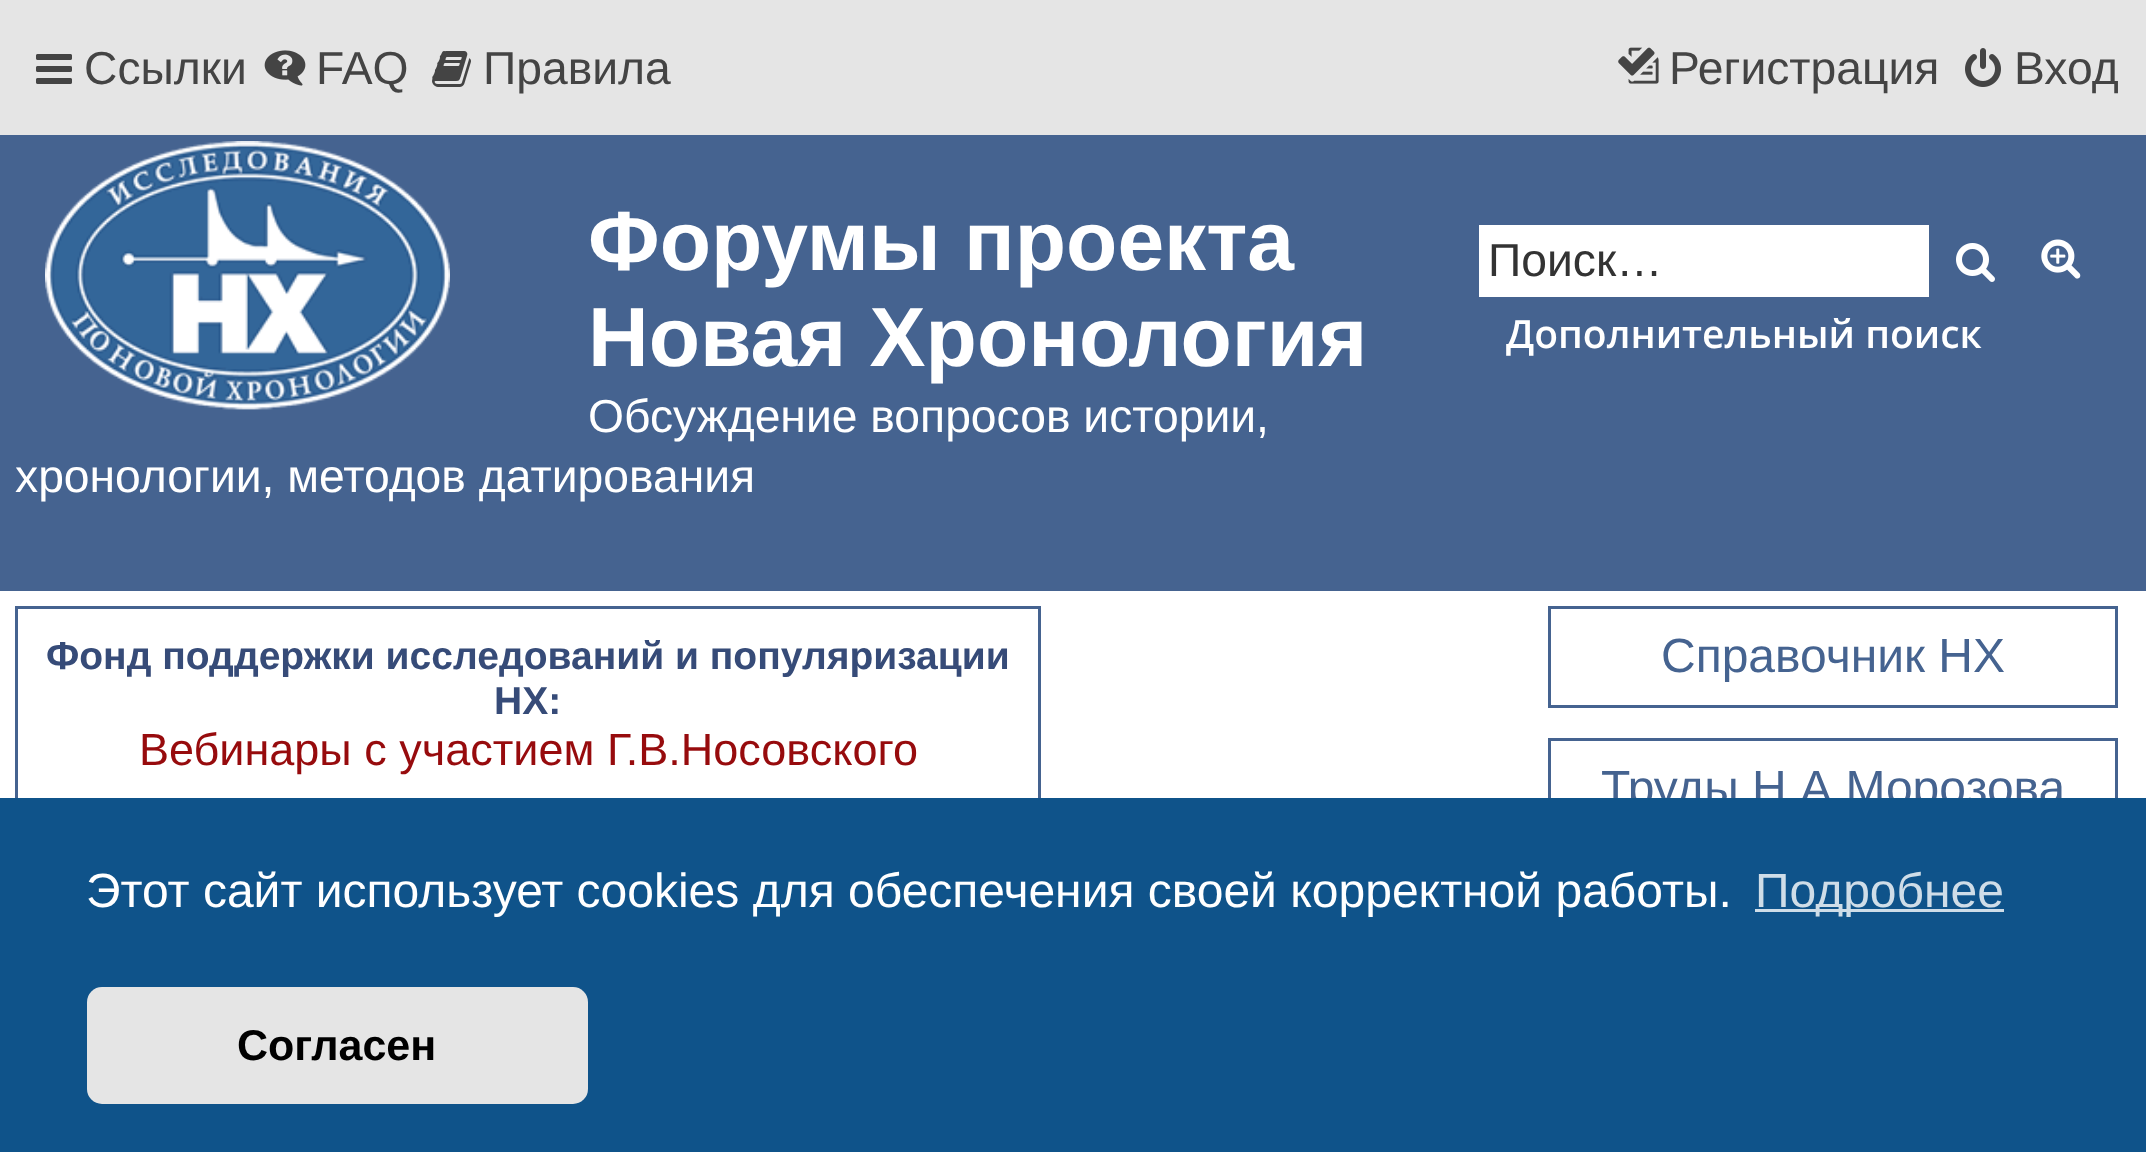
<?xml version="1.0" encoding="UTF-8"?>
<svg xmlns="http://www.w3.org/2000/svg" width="2146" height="1152">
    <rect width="100%" height="100%" fill="#FFFFFF"/>
    <rect x="0" y="0" width="2146" height="135" fill="#E5E5E5"/>
    <image x="36" y="54" width="36" height="30" href="img_01.png"/>
    <text x="84" y="84" font-family="Liberation Sans" font-size="46.25" fill="#444444">Ссылки</text>
    <image x="264" y="50" width="42" height="36" href="img_02.png"/>
    <text x="316" y="84" font-family="Liberation Sans" font-size="46.25" fill="#444444">FAQ</text>
    <image x="432" y="51" width="39" height="36" href="img_03.png"/>
    <text x="483" y="84" font-family="Liberation Sans" font-size="46.25" fill="#444444">Правила</text>
    <image x="1618" y="47" width="41" height="37" href="img_04.png"/>
    <text x="1669" y="84" font-family="Liberation Sans" font-size="46.25" fill="#444444">Регистрация</text>
    <image x="1965" y="48" width="36" height="39" href="img_05.png"/>
    <text x="2014" y="84" font-family="Liberation Sans" font-size="46.25" fill="#444444">Вход</text>
    <rect x="0" y="135" width="2146" height="456" fill="#456390"/>
    <image x="45" y="141" width="405" height="269" href="img_06.png"/>
    <text font-family="Liberation Sans" font-size="84" font-weight="700" fill="#FFFFFF">
        <tspan x="588" y="270">Форумы проекта</tspan>
        <tspan x="588" y="366">Новая Хронология</tspan>
    </text>
    <text x="588" y="432" font-family="Liberation Sans" font-size="46.25" fill="#FFFFFF">Обсуждение вопросов истории,</text>
    <text x="15" y="492" font-family="Liberation Sans" font-size="46.25" fill="#FFFFFF">хронологии, методов датирования</text>
    <rect x="1479" y="225" width="450" height="72" fill="#FFFFFF"/>
    <text x="1488" y="276" font-family="Liberation Sans" font-size="46.25" fill="#333333">Поиск…</text>
    <image x="1956" y="243" width="39" height="39" href="img_07.png"/>
    <image x="2041" y="239" width="40" height="40" href="img_08.png"/>
    <text x="1506" y="348" font-family="Open Sans" font-size="39" font-weight="600" fill="#FFFFFF">Дополнительный поиск</text>
    <rect x="16.5" y="607.5" width="1023" height="243" fill="none" stroke="#456390" stroke-width="3"/>
    <text x="46" y="669" font-family="Liberation Sans" font-size="39" font-weight="700" fill="#364B78">Фонд поддержки исследований и популяризации</text>
    <text x="494" y="714" font-family="Liberation Sans" font-size="39" font-weight="700" fill="#364B78">НХ:</text>
    <text x="139" y="765" font-family="Liberation Sans" font-size="45" fill="#970B0D">Вебинары с участием Г.В.Носовского</text>
    <rect x="1549.5" y="607.5" width="567" height="99" fill="none" stroke="#456390" stroke-width="3"/>
    <text x="1661" y="672" font-family="Liberation Sans" font-size="48" fill="#456390">Справочник НХ</text>
    <rect x="1549.5" y="739.5" width="567" height="99" fill="none" stroke="#456390" stroke-width="3"/>
    <text x="1601" y="804" font-family="Liberation Sans" font-size="48" fill="#456390">Труды Н.А.Морозова</text>
    <rect x="0" y="798" width="2146" height="354" fill="#0F538A"/>
    <text x="86" y="907" font-family="Liberation Sans" font-size="48" fill="#FFFFFF">Этот сайт использует cookies для обеспечения своей корректной работы.</text>
    <rect x="1755" y="909" width="249" height="3" fill="#CFDDE8"/>
    <text x="1755" y="907" font-family="Liberation Sans" font-size="48" fill="#CFDDE8">Подробнее</text>
    <rect x="87" y="987" width="501" height="117" rx="15" fill="#E5E5E5"/>
    <text x="237" y="1060" font-family="Liberation Sans" font-size="43" font-weight="700" fill="#000000">Согласен</text>
</svg>
